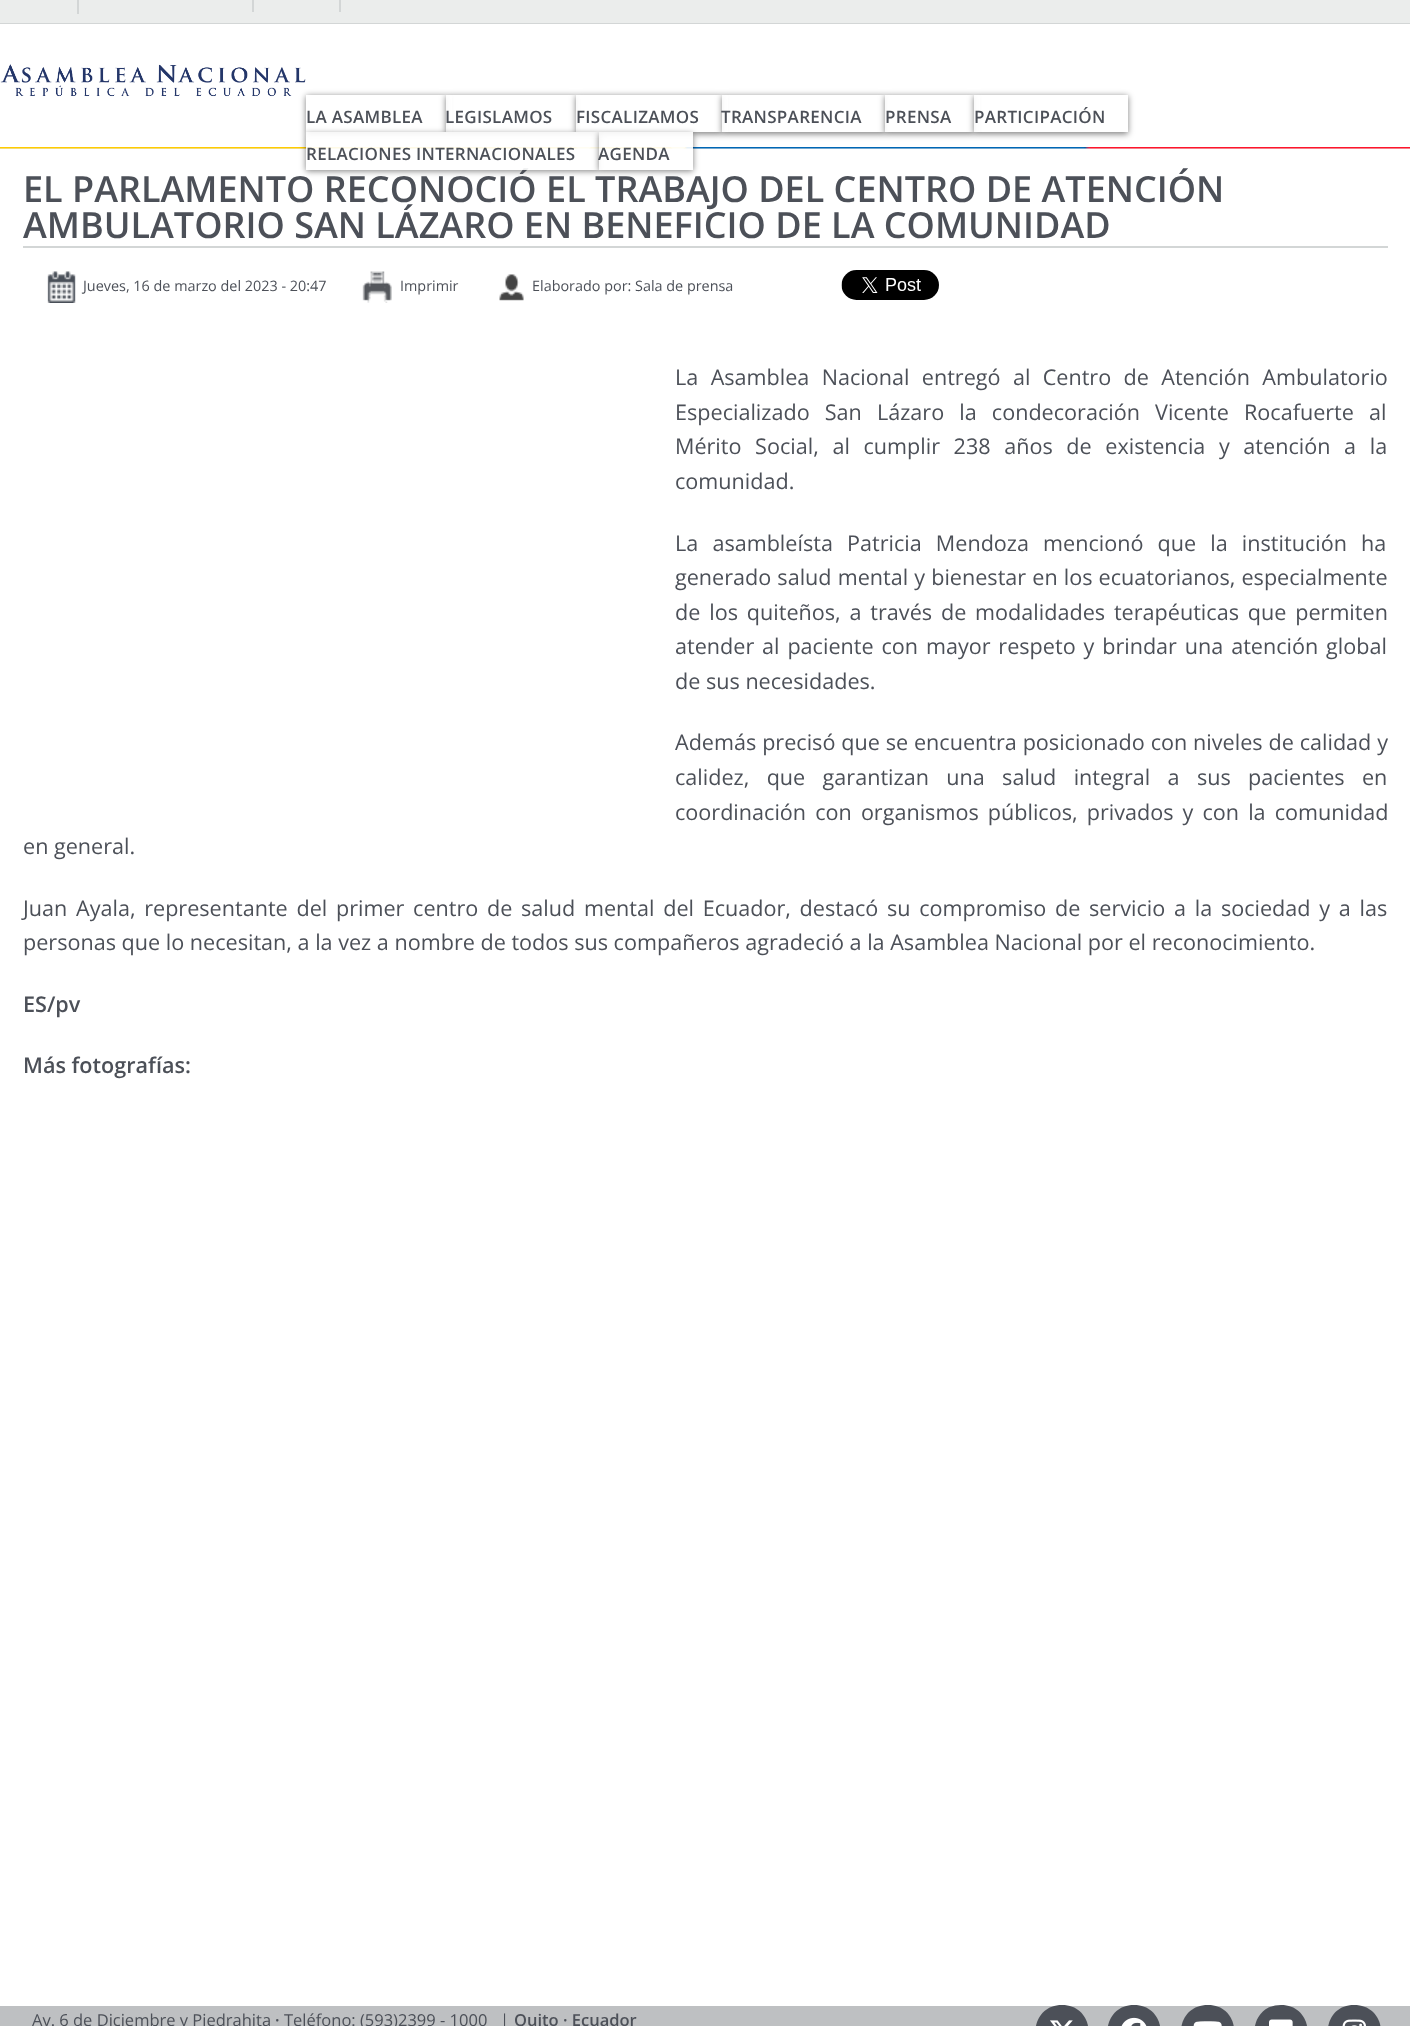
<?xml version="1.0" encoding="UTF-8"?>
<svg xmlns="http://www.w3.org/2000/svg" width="1410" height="2026">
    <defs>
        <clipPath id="clip1"><path d="M 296 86 H 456 V 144 H 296 Z M 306 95 H 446 V 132 H 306 Z" clip-rule="evenodd"/></clipPath>
        <filter id="blur1" x="-50%" y="-200%" width="200%" height="500%"><feGaussianBlur stdDeviation="3"/></filter>
        <clipPath id="clip2"><path d="M 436 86 H 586 V 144 H 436 Z M 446 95 H 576 V 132 H 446 Z" clip-rule="evenodd"/></clipPath>
        <clipPath id="clip3"><path d="M 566 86 H 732 V 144 H 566 Z M 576 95 H 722 V 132 H 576 Z" clip-rule="evenodd"/></clipPath>
        <clipPath id="clip4"><path d="M 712 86 H 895 V 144 H 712 Z M 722 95 H 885 V 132 H 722 Z" clip-rule="evenodd"/></clipPath>
        <clipPath id="clip5"><path d="M 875 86 H 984 V 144 H 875 Z M 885 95 H 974 V 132 H 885 Z" clip-rule="evenodd"/></clipPath>
        <clipPath id="clip6"><path d="M 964 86 H 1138 V 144 H 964 Z M 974 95 H 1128 V 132 H 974 Z" clip-rule="evenodd"/></clipPath>
        <clipPath id="clip7"><path d="M 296 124 H 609 V 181 H 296 Z M 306 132 H 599 V 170 H 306 Z" clip-rule="evenodd"/></clipPath>
        <clipPath id="clip8"><path d="M 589 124 H 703 V 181 H 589 Z M 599 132 H 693 V 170 H 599 Z" clip-rule="evenodd"/></clipPath>
    </defs>
    <rect width="100%" height="100%" fill="#BEC0C2"/>
    <rect x="0" y="0" width="1410" height="23" fill="#EBEDEC"/>
    <rect x="0" y="23" width="1410" height="1" fill="#D3D6D6"/>
    <rect x="77" y="0" width="2" height="14" fill="#D3D6D6"/>
    <rect x="252" y="0" width="2" height="12" fill="#D3D6D6"/>
    <rect x="339" y="0" width="2" height="12" fill="#D3D6D6"/>
    <rect x="0" y="24" width="1410" height="1982" fill="#FFFFFF"/>
    <image x="0" y="148" width="1410" height="1" href="img_01.png"/>
    <image x="0" y="147" width="1410" height="2" href="img_02.png"/>
    <image x="0" y="64" width="306" height="33" href="img_03.png"/>
    <g clip-path="url(#clip1)">
        <rect x="306" y="96" width="140" height="38" fill="#000000" fill-opacity="0.5" filter="url(#blur1)"/>
    </g>
    <rect x="445" y="95" width="1" height="37" fill="#FFFFFF" fill-opacity="0.9"/>
    <g clip-path="url(#clip2)">
        <rect x="446" y="96" width="130" height="38" fill="#000000" fill-opacity="0.5" filter="url(#blur1)"/>
    </g>
    <rect x="446" y="95" width="6" height="37" fill="#FFFFFF" fill-opacity="0.9"/>
    <g clip-path="url(#clip3)">
        <rect x="576" y="96" width="146" height="38" fill="#000000" fill-opacity="0.5" filter="url(#blur1)"/>
    </g>
    <rect x="576" y="95" width="146" height="37" fill="#FFFFFF" fill-opacity="0.9"/>
    <g clip-path="url(#clip4)">
        <rect x="722" y="96" width="163" height="38" fill="#000000" fill-opacity="0.5" filter="url(#blur1)"/>
    </g>
    <rect x="722" y="95" width="6" height="37" fill="#FFFFFF" fill-opacity="0.9"/>
    <g clip-path="url(#clip5)">
        <rect x="885" y="96" width="89" height="38" fill="#000000" fill-opacity="0.5" filter="url(#blur1)"/>
    </g>
    <rect x="885" y="95" width="89" height="37" fill="#FFFFFF" fill-opacity="0.9"/>
    <g clip-path="url(#clip6)">
        <rect x="974" y="96" width="154" height="38" fill="#000000" fill-opacity="0.5" filter="url(#blur1)"/>
    </g>
    <rect x="974" y="95" width="6" height="37" fill="#FFFFFF" fill-opacity="0.9"/>
    <g clip-path="url(#clip7)">
        <rect x="306" y="134" width="293" height="37" fill="#000000" fill-opacity="0.5" filter="url(#blur1)"/>
    </g>
    <text x="23" y="202" font-family="Open Sans" font-size="36" font-weight="600" fill="#4C5058">EL PARLAMENTO RECONOCIÓ EL TRABAJO DEL CENTRO DE ATENCIÓN</text>
    <rect x="306" y="132" width="293" height="38" fill="#FFFFFF" fill-opacity="0.9"/>
    <g clip-path="url(#clip8)">
        <rect x="599" y="134" width="94" height="37" fill="#000000" fill-opacity="0.5" filter="url(#blur1)"/>
    </g>
    <rect x="599" y="132" width="94" height="38" fill="#FFFFFF" fill-opacity="0.9"/>
    <text x="306" y="123" font-family="Open Sans" font-size="17" font-weight="600" letter-spacing="0.3" fill="#4C5058">LA ASAMBLEA</text>
    <text x="445" y="123" font-family="Open Sans" font-size="17" font-weight="600" letter-spacing="0.3" fill="#4C5058">LEGISLAMOS</text>
    <text x="576" y="123" font-family="Open Sans" font-size="17" font-weight="600" letter-spacing="0.3" fill="#4C5058">FISCALIZAMOS</text>
    <text x="721" y="123" font-family="Open Sans" font-size="17" font-weight="600" letter-spacing="0.3" fill="#4C5058">TRANSPARENCIA</text>
    <text x="885" y="123" font-family="Open Sans" font-size="17" font-weight="600" letter-spacing="0.3" fill="#4C5058">PRENSA</text>
    <text x="974" y="123" font-family="Open Sans" font-size="17" font-weight="600" letter-spacing="0.3" fill="#4C5058">PARTICIPACIÓN</text>
    <text x="306" y="160" font-family="Open Sans" font-size="17" font-weight="600" letter-spacing="0.3" fill="#4C5058">RELACIONES INTERNACIONALES</text>
    <path d="M 576 147 H 591 L 583.5 154.5 Z" fill="#FFFFFF" fill-opacity="0.5"/>
    <text x="598" y="160" font-family="Open Sans" font-size="17" font-weight="600" letter-spacing="0.3" fill="#4C5058">AGENDA</text>
    <path d="M 670.5 147 H 685.5 L 678 154.5 Z" fill="#FFFFFF" fill-opacity="0.5"/>
    <rect x="23" y="246" width="1365" height="2" fill="#D3D6D6"/>
    <text x="23" y="238" font-family="Open Sans" font-size="36" font-weight="600" fill="#4C5058">AMBULATORIO SAN LÁZARO EN BENEFICIO DE LA COMUNIDAD</text>
    <image x="47" y="271" width="29" height="32" href="img_04.png"/>
    <text x="83" y="291" font-family="Open Sans" font-size="14.4" fill="#4C5058">Jueves, 16 de marzo del 2023 - 20:47</text>
    <image x="362" y="271" width="30" height="32" href="img_05.png"/>
    <text x="400" y="291" font-family="Open Sans" font-size="14.4" fill="#4C5058">Imprimir</text>
    <image x="499" y="274" width="25" height="27" href="img_06.png"/>
    <text x="532" y="291" font-family="Open Sans" font-size="14.4" fill="#4C5058">Elaborado por: Sala de prensa</text>
    <image x="841" y="270" width="98" height="30" href="img_07.png"/>
    <text font-family="Open Sans" font-size="21.6" fill="#4C5058">
        <tspan x="675" y="385" word-spacing="6.75">La Asamblea Nacional entregó al Centro de Atención Ambulatorio</tspan>
        <tspan x="675" y="420" word-spacing="9.5">Especializado San Lázaro la condecoración Vicente Rocafuerte al</tspan>
        <tspan x="675" y="454" word-spacing="8">Mérito Social, al cumplir 238 años de existencia y atención a la</tspan>
        <tspan x="675" y="489">comunidad.</tspan>
    </text>
    <text font-family="Open Sans" font-size="21.6" fill="#4C5058">
        <tspan x="675" y="551" word-spacing="8.5">La asambleísta Patricia Mendoza mencionó que la institución ha</tspan>
        <tspan x="675" y="585" word-spacing="0.5">generado salud mental y bienestar en los ecuatorianos, especialmente</tspan>
        <tspan x="675" y="620" word-spacing="3.25">de los quiteños, a través de modalidades terapéuticas que permiten</tspan>
        <tspan x="675" y="654" word-spacing="2.25">atender al paciente con mayor respeto y brindar una atención global</tspan>
        <tspan x="675" y="689">de sus necesidades.</tspan>
    </text>
    <text font-family="Open Sans" font-size="21.6" fill="#4C5058">
        <tspan x="675" y="750" word-spacing="0.25">Además precisó que se encuentra posicionado con niveles de calidad y</tspan>
        <tspan x="675" y="785" word-spacing="11.75">calidez, que garantizan una salud integral a sus pacientes en</tspan>
        <tspan x="675" y="820" word-spacing="3.5">coordinación con organismos públicos, privados y con la comunidad</tspan>
    </text>
    <text x="23" y="854" font-family="Open Sans" font-size="21.6" fill="#4C5058">en general.</text>
    <text font-family="Open Sans" font-size="21.6" fill="#4C5058">
        <tspan x="23" y="916" word-spacing="3.1">Juan Ayala, representante del primer centro de salud mental del Ecuador, destacó su compromiso de servicio a la sociedad y a las</tspan>
        <tspan x="23" y="950">personas que lo necesitan, a la vez a nombre de todos sus compañeros agradeció a la Asamblea Nacional por el reconocimiento.</tspan>
    </text>
    <text x="23" y="1012" font-family="Open Sans" font-size="21.6" font-weight="600" fill="#4C5058">ES/pv</text>
    <text x="23" y="1073" font-family="Open Sans" font-size="21.6" font-weight="600" fill="#4C5058">Más fotografías:</text>
    <text x="32" y="2026" font-family="Open Sans" font-size="16.5" fill="#4C5058">Av. 6 de Diciembre y Piedrahita</text>
    <text x="275" y="2026" font-family="Open Sans" font-size="16.5" font-weight="600" fill="#4C5058">·</text>
    <text x="284" y="2026" font-family="Open Sans" font-size="16.5" fill="#4C5058">Teléfono: (593)2399 - 1000</text>
    <text x="500" y="2026" font-family="Open Sans" font-size="16.5" fill="#4C5058">|</text>
    <text x="514" y="2026" font-family="Open Sans" font-size="16.5" font-weight="600" fill="#4C5058">Quito · Ecuador</text>
    <path d="M 1062 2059 C 1098 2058 1097 2005 1062 2005 C 1027 2005 1026 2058 1062 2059 Z" fill="#4C5058"/>
    <image x="1050" y="2020" width="23" height="6" href="img_08.png"/>
    <path d="M 1134 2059 C 1170 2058 1169 2005 1134 2005 C 1099 2005 1098 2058 1134 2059 Z" fill="#4C5058"/>
    <image x="1121" y="2017" width="26" height="9" href="img_09.png"/>
    <path d="M 1208 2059 C 1243 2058 1243 2005 1208 2005 C 1172 2005 1172 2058 1208 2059 Z" fill="#4C5058"/>
    <image x="1193" y="2021" width="29" height="5" href="img_10.png"/>
    <path d="M 1281 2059 C 1317 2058 1316 2005 1281 2005 C 1246 2005 1245 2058 1281 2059 Z" fill="#4C5058"/>
    <image x="1269" y="2019" width="24" height="7" href="img_11.png"/>
    <path d="M 1354 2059 C 1390 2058 1390 2005 1354 2005 C 1319 2005 1319 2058 1354 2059 Z" fill="#4C5058"/>
    <image x="1342" y="2019" width="24" height="7" href="img_12.png"/>
</svg>
